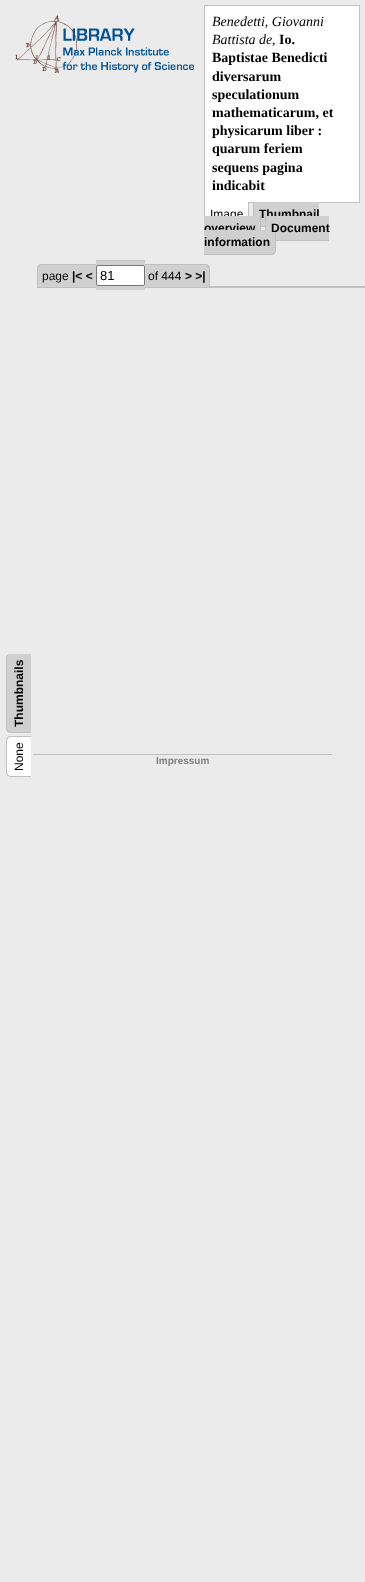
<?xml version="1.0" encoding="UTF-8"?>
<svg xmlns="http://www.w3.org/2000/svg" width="365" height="1582">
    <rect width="100%" height="100%" fill="#EBEBEB"/>
    <image x="15" y="15" width="179" height="58" href="img_01.png"/>
    <rect x="204.5" y="5.5" width="155" height="197" fill="#FFFFFF" stroke="#C0C0C0"/>
    <text font-family="Liberation Serif" font-size="14" font-style="italic" fill="#000000">
        <tspan x="212" y="26">Benedetti, Giovanni</tspan>
        <tspan x="212" y="44">Battista de</tspan>
    </text>
    <text x="272" y="44" font-family="Liberation Serif" font-size="14" fill="#000000">,</text>
    <text x="279" y="44" font-family="Liberation Serif" font-size="14" font-weight="700" fill="#000000">Io.</text>
    <text font-family="Liberation Serif" font-size="14" font-weight="700" fill="#000000">
        <tspan x="212" y="62">Baptistae Benedicti</tspan>
        <tspan x="212" y="81">diversarum</tspan>
        <tspan x="212" y="99">speculationum</tspan>
        <tspan x="212" y="117">mathematicarum, et</tspan>
        <tspan x="212" y="135">physicarum liber :</tspan>
        <tspan x="212" y="153">quarum feriem</tspan>
        <tspan x="212" y="172">sequens pagina</tspan>
        <tspan x="212" y="190">indicabit</tspan>
    </text>
    <rect x="205" y="202" width="43" height="14" fill="#FFFFFF"/>
    <path d="M 204 202 H 249 V 222 C 249 225 247 227 244 227 H 209 C 206 227 204 225 204 222 Z M 205 202 H 248 V 222 C 248 224 246 226 244 226 H 209 C 207 226 205 224 205 222 Z" fill="#C0C0C0" fill-rule="evenodd"/>
    <text x="210" y="218" font-family="Liberation Sans" font-size="12" fill="#000000">Image</text>
    <rect x="254" y="202" width="65" height="24" fill="#D0D0D0"/>
    <path d="M 253 202 H 319 V 227 H 258 C 255 227 253 225 253 222 Z M 254 202 H 319 V 226 H 258 C 256 226 254 224 254 222 Z" fill="#C0C0C0" fill-rule="evenodd"/>
    <rect x="204" y="216" width="56" height="14" fill="#D0D0D0"/>
    <path d="M 204 216 H 261 V 236 C 261 239 259 241 256 241 H 204 Z M 204 216 H 260 V 236 C 260 238 258 240 256 240 H 204 Z" fill="#C0C0C0" fill-rule="evenodd"/>
    <text x="259" y="218" font-family="Liberation Sans" font-size="12" font-weight="700" fill="#000000">Thumbnail</text>
    <text x="204" y="232" font-family="Liberation Sans" font-size="12" font-weight="700" fill="#000000">overview</text>
    <rect x="266" y="216" width="63" height="24" fill="#D0D0D0"/>
    <path d="M 265 216 H 329 V 241 H 270 C 267 241 265 239 265 236 Z M 266 216 H 329 V 240 H 270 C 268 240 266 238 266 236 Z" fill="#C0C0C0" fill-rule="evenodd"/>
    <path d="M 204 230 H 276 V 250 C 276 253 274 255 271 255 H 204 Z" fill="#D0D0D0"/>
    <path d="M 204 230 H 276 V 250 C 276 253 274 255 271 255 H 204 Z M 204 230 H 275 V 250 C 275 252 273 254 271 254 H 204 Z" fill="#C0C0C0" fill-rule="evenodd"/>
    <text x="271" y="232" font-family="Liberation Sans" font-size="12" font-weight="700" fill="#000000">Document</text>
    <text x="204" y="246" font-family="Liberation Sans" font-size="12" font-weight="700" fill="#000000">information</text>
    <rect x="37" y="286" width="328" height="2" fill="#C0C0C0"/>
    <path d="M 42 264 H 72 V 287 H 37 V 269 C 37 266 39 264 42 264 Z" fill="#D0D0D0"/>
    <path d="M 42 264 H 72 V 287 H 37 V 269 C 37 266 39 264 42 264 Z M 42 265 H 72 V 287 H 38 V 269 C 38 267 40 265 42 265 Z" fill="#C0C0C0" fill-rule="evenodd"/>
    <rect x="72" y="265" width="10" height="22" fill="#D0D0D0"/>
    <rect x="72" y="264" width="10" height="1" fill="#C0C0C0"/>
    <rect x="82" y="264" width="14" height="23" fill="#D0D0D0"/>
    <rect x="82" y="264" width="14" height="1" fill="#C0C0C0"/>
    <rect x="96" y="261" width="49" height="29" fill="#D0D0D0"/>
    <rect x="96" y="260" width="49" height="1" fill="#C0C0C0"/>
    <rect x="145" y="264" width="3" height="23" fill="#D0D0D0"/>
    <rect x="145" y="264" width="40" height="1" fill="#C0C0C0"/>
    <rect x="148" y="265" width="37" height="22" fill="#D0D0D0"/>
    <rect x="185" y="264" width="10" height="23" fill="#D0D0D0"/>
    <rect x="185" y="264" width="10" height="1" fill="#C0C0C0"/>
    <path d="M 195 264 H 205 C 208 264 210 266 210 269 V 287 H 195 Z" fill="#D0D0D0"/>
    <path d="M 195 264 H 205 C 208 264 210 266 210 269 V 287 H 195 Z M 195 265 H 205 C 207 265 209 267 209 269 V 287 H 195 Z" fill="#C0C0C0" fill-rule="evenodd"/>
    <text x="42" y="280" font-family="Liberation Sans" font-size="12" fill="#000000">page</text>
    <text x="72" y="280" font-family="Liberation Sans" font-size="12" font-weight="700" fill="#000000">|&lt; &lt;</text>
    <rect x="96.5" y="265.5" width="48" height="20" rx="1.5" fill="#FFFFFF" stroke="#767676"/>
    <text x="100" y="280" font-family="Liberation Sans" font-size="13" fill="#000000">81</text>
    <text x="148" y="280" font-family="Liberation Sans" font-size="12" fill="#000000">of 444</text>
    <text x="185" y="280" font-family="Liberation Sans" font-size="12" font-weight="700" fill="#000000">&gt; &gt;|</text>
    <path d="M 6 728 V 658 C 6 656 8 654 11 654 H 31 V 733 H 11 C 8 733 6 731 6 728 Z" fill="#D0D0D0"/>
    <path d="M 6 728 V 658 C 6 656 8 654 11 654 H 31 V 733 H 11 C 8 733 6 731 6 728 Z M 7 728 V 658 C 7 656 9 654 11 654 H 31 V 732 H 11 C 9 732 7 730 7 728 Z" fill="#C0C0C0" fill-rule="evenodd"/>
    <text x="23" y="727" transform="rotate(-90 23 727)" font-family="Liberation Sans" font-size="12" font-weight="700" fill="#000000">Thumbnails</text>
    <path d="M 6 772 V 741 C 6 738 8 736 11 736 H 31 V 777 H 11 C 8 777 6 775 6 772 Z" fill="#FFFFFF"/>
    <path d="M 6 772 V 741 C 6 738 8 736 11 736 H 31 V 777 H 11 C 8 777 6 775 6 772 Z M 7 772 V 741 C 7 739 9 737 11 737 H 31 V 776 H 11 C 9 776 7 774 7 772 Z" fill="#C0C0C0" fill-rule="evenodd"/>
    <text x="23" y="771" transform="rotate(-90 23 771)" font-family="Liberation Sans" font-size="12" fill="#000000">None</text>
    <rect x="33" y="754" width="299" height="1" fill="#C0C0C0"/>
    <text x="156" y="764" font-family="Liberation Sans" font-size="10" font-weight="700" fill="#808080">Impressum</text>
</svg>
